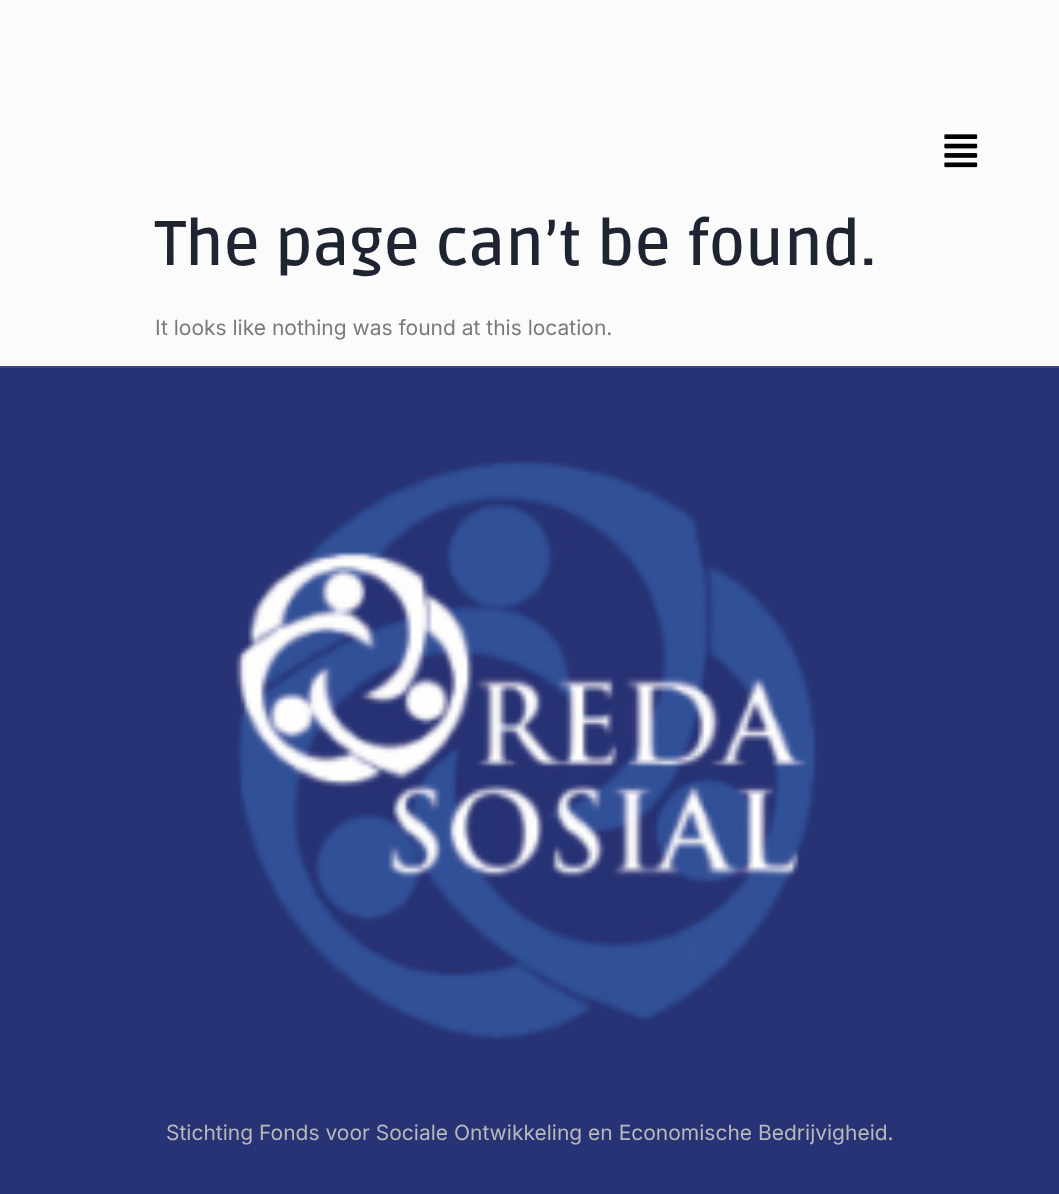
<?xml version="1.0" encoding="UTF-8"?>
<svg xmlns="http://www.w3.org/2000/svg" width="1059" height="1194">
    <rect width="100%" height="100%" fill="#FBFBFB"/>
    <image x="944" y="134" width="34" height="34" href="img_01.png"/>
    <text x="155" y="265" font-family="Ruda" font-size="63" font-weight="600" fill="#1F2433">The page can’t be found.</text>
    <text x="155" y="335" font-family="Inter" font-size="21" fill="#7A7A7A">It looks like nothing was found at this location.</text>
    <rect x="0" y="368" width="1059" height="826" fill="#273375"/>
    <rect x="0" y="366" width="1059" height="2" fill="#3D4783"/>
    <image x="235" y="460" width="583" height="579" href="img_02.png"/>
    <text x="166" y="1140" font-family="Inter" font-size="21" fill="#B8B8B8">Stichting Fonds voor Sociale Ontwikkeling en Economische Bedrijvigheid.</text>
</svg>
